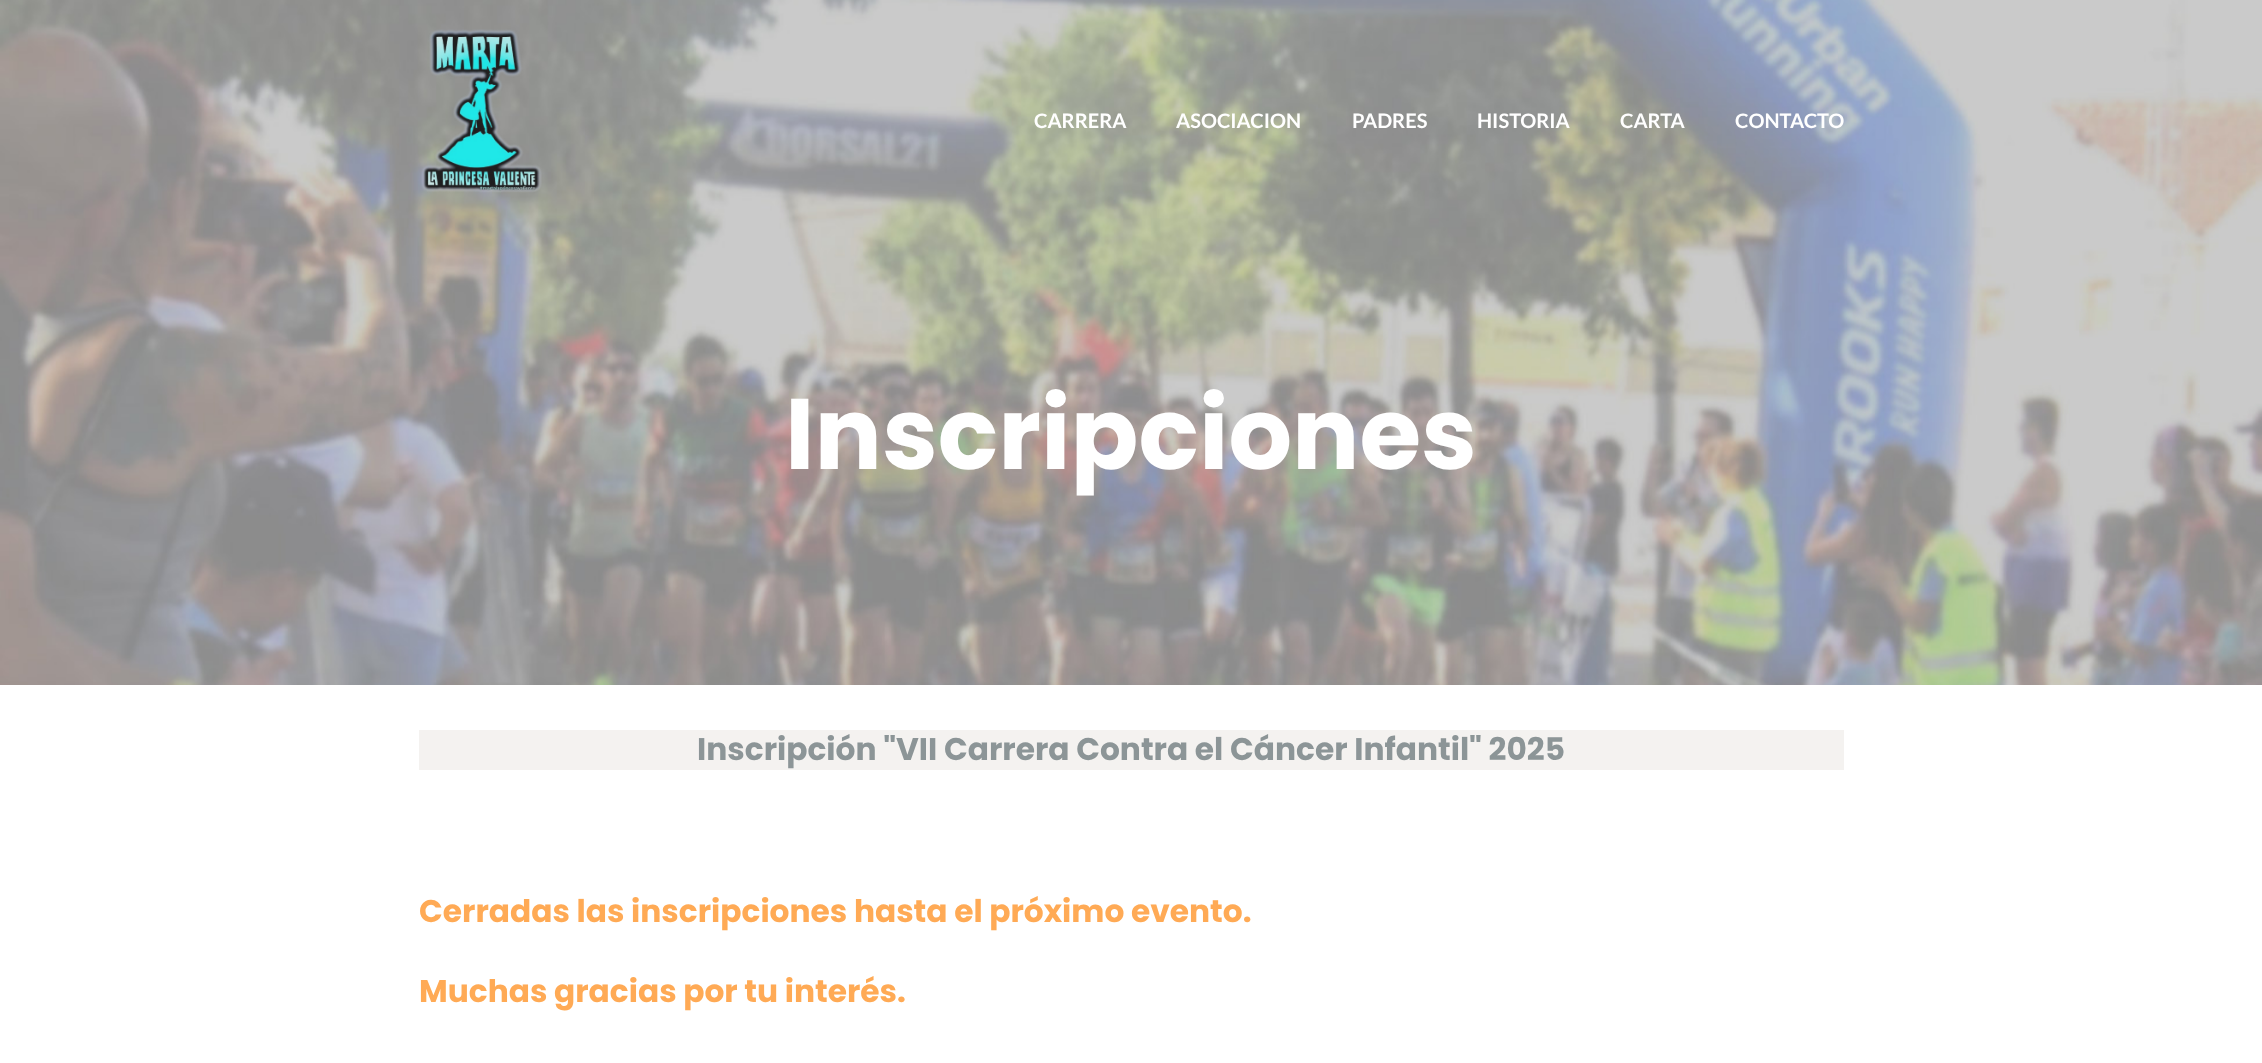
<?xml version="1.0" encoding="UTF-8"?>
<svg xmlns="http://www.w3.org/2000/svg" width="2262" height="1063">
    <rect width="100%" height="100%" fill="#FFFFFF"/>
    <image x="0" y="0" width="2262" height="685" href="img_01.png"/>
    <image x="421" y="29" width="121" height="164" href="img_02.png"/>
    <text x="1034" y="128" font-family="Lato" font-size="20" font-weight="700" fill="#FFFFFF">CARRERA</text>
    <text x="1176" y="128" font-family="Lato" font-size="20" font-weight="700" fill="#FFFFFF">ASOCIACION</text>
    <text x="1352" y="128" font-family="Lato" font-size="20" font-weight="700" fill="#FFFFFF">PADRES</text>
    <text x="1477" y="128" font-family="Lato" font-size="20" font-weight="700" fill="#FFFFFF">HISTORIA</text>
    <text x="1620" y="128" font-family="Lato" font-size="20" font-weight="700" fill="#FFFFFF">CARTA</text>
    <text x="1735" y="128" font-family="Lato" font-size="20" font-weight="700" fill="#FFFFFF">CONTACTO</text>
    <text x="785" y="469" font-family="Poppins" font-size="100" font-weight="700" fill="#FFFFFF">Inscripciones</text>
    <rect x="419" y="730" width="1425" height="40" fill="#F4F2F0"/>
    <text x="697" y="760" font-family="Poppins" font-size="31.25" font-weight="700" fill="#8C9597">Inscripción "VII Carrera Contra el Cáncer Infantil" 2025</text>
    <text x="419" y="922" font-family="Poppins" font-size="31.25" font-weight="700" fill="#FFAA55">Cerradas las inscripciones hasta el próximo evento.</text>
    <text x="419" y="1002" font-family="Poppins" font-size="31.25" font-weight="700" fill="#FFAA55">Muchas gracias por tu interés.</text>
</svg>
